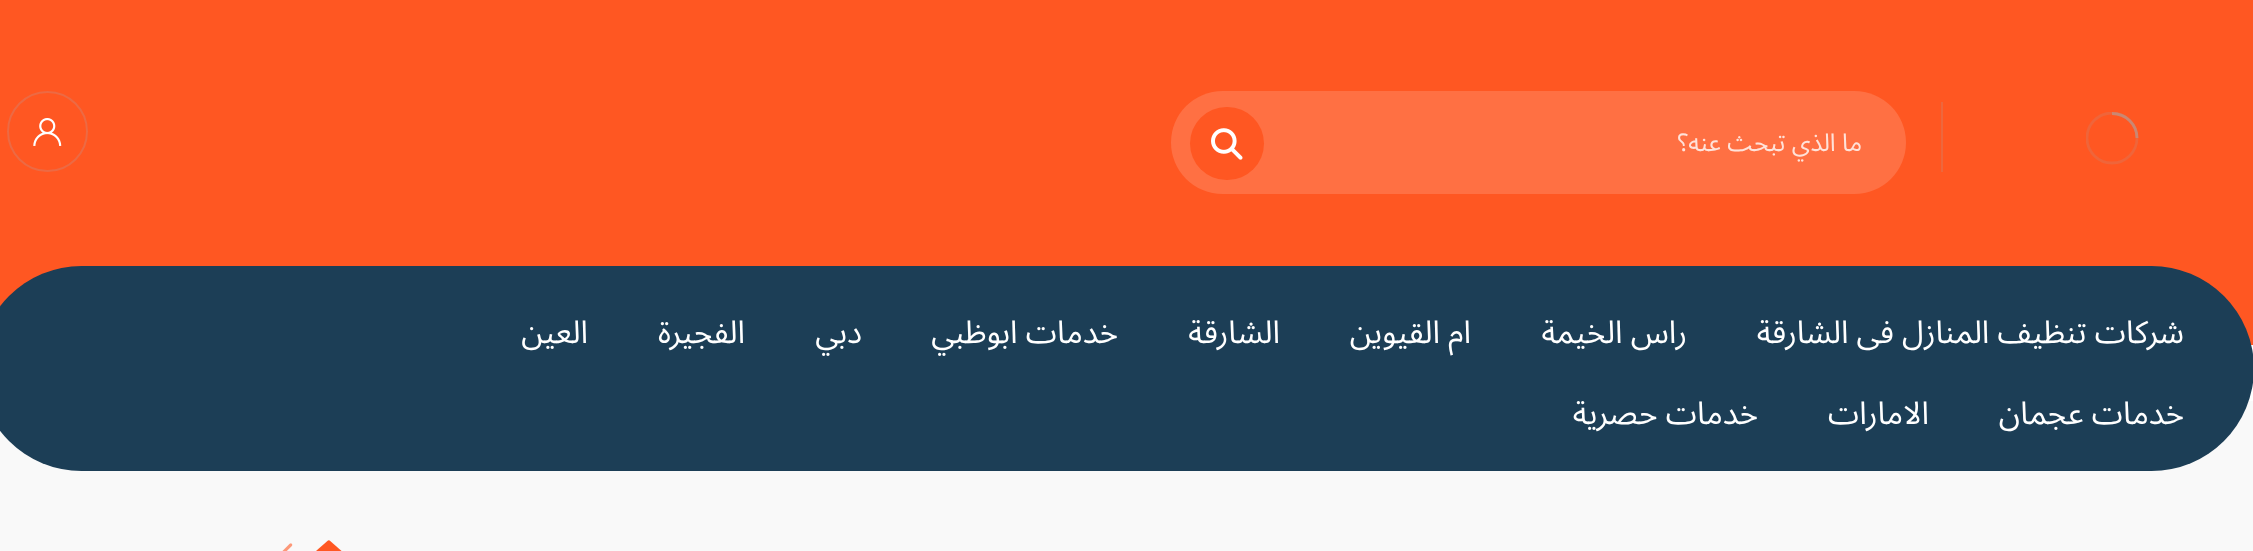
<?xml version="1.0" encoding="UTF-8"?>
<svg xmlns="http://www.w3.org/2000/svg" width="2253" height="551">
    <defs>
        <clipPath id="clip1"><rect x="2086" y="112" width="53" height="53"/></clipPath>
    </defs>
    <rect width="100%" height="100%" fill="#FFFFFF"/>
    <rect x="0" y="0" width="2253" height="345" fill="#FF5722"/>
    <g clip-path="url(#clip1)">
        <circle cx="2112" cy="138" r="25" fill="none" stroke="#EF653A" stroke-width="2.8"/>
    </g>
    <path d="M 2137 138 C 2137 124.5 2126 113.5 2112 113.5" fill="none" stroke="#CA8772" stroke-width="2.8"/>
    <rect x="1941" y="102" width="2" height="70" fill="#ED673D"/>
    <rect x="1171" y="91" width="735" height="103" rx="51.5" fill="#FF7043"/>
    <text x="1862" y="151" font-family="Noto Sans Arabic" font-size="24.5" direction="rtl" fill="#FFE2D9">ما الذي تبحث عنه؟</text>
    <rect x="1190" y="107" width="74" height="73" rx="36.5" fill="#FF5722"/>
    <image x="1211" y="128" width="32" height="32" href="img_01.png"/>
    <circle cx="47.5" cy="131.5" r="39.5" fill="none" stroke="#EC6A44" stroke-width="2"/>
    <image x="33" y="118" width="29" height="28" href="img_02.png"/>
    <rect x="0" y="401" width="2253" height="150" fill="#F9F9F9"/>
    <rect x="-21" y="266" width="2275" height="205" rx="102.5" fill="#1C3E56"/>
    <text x="2184" y="343" font-family="Noto Sans Arabic" font-size="31.5" direction="rtl" fill="#FFFFFF">شركات تنظيف المنازل فى الشارقة</text>
    <text x="1687" y="343" font-family="Noto Sans Arabic" font-size="31.5" direction="rtl" fill="#FFFFFF">راس الخيمة</text>
    <text x="1471" y="343" font-family="Noto Sans Arabic" font-size="31.5" direction="rtl" fill="#FFFFFF">ام القيوين</text>
    <text x="1280" y="343" font-family="Noto Sans Arabic" font-size="31.5" direction="rtl" fill="#FFFFFF">الشارقة</text>
    <text x="1118" y="343" font-family="Noto Sans Arabic" font-size="31.5" direction="rtl" fill="#FFFFFF">خدمات ابوظبي</text>
    <text x="862" y="343" font-family="Noto Sans Arabic" font-size="31.5" direction="rtl" fill="#FFFFFF">دبي</text>
    <text x="745" y="343" font-family="Noto Sans Arabic" font-size="31.5" direction="rtl" fill="#FFFFFF">الفجيرة</text>
    <text x="588" y="343" font-family="Noto Sans Arabic" font-size="31.5" direction="rtl" fill="#FFFFFF">العين</text>
    <text x="2184" y="424" font-family="Noto Sans Arabic" font-size="31.5" direction="rtl" fill="#FFFFFF">خدمات عجمان</text>
    <text x="1929" y="424" font-family="Noto Sans Arabic" font-size="31.5" direction="rtl" fill="#FFFFFF">الامارات</text>
    <text x="1758" y="424" font-family="Noto Sans Arabic" font-size="31.5" direction="rtl" fill="#FFFFFF">خدمات حصرية</text>
    <image x="316" y="540" width="26" height="11" href="img_03.png"/>
    <image x="282" y="543" width="11" height="8" href="img_04.png"/>
</svg>
